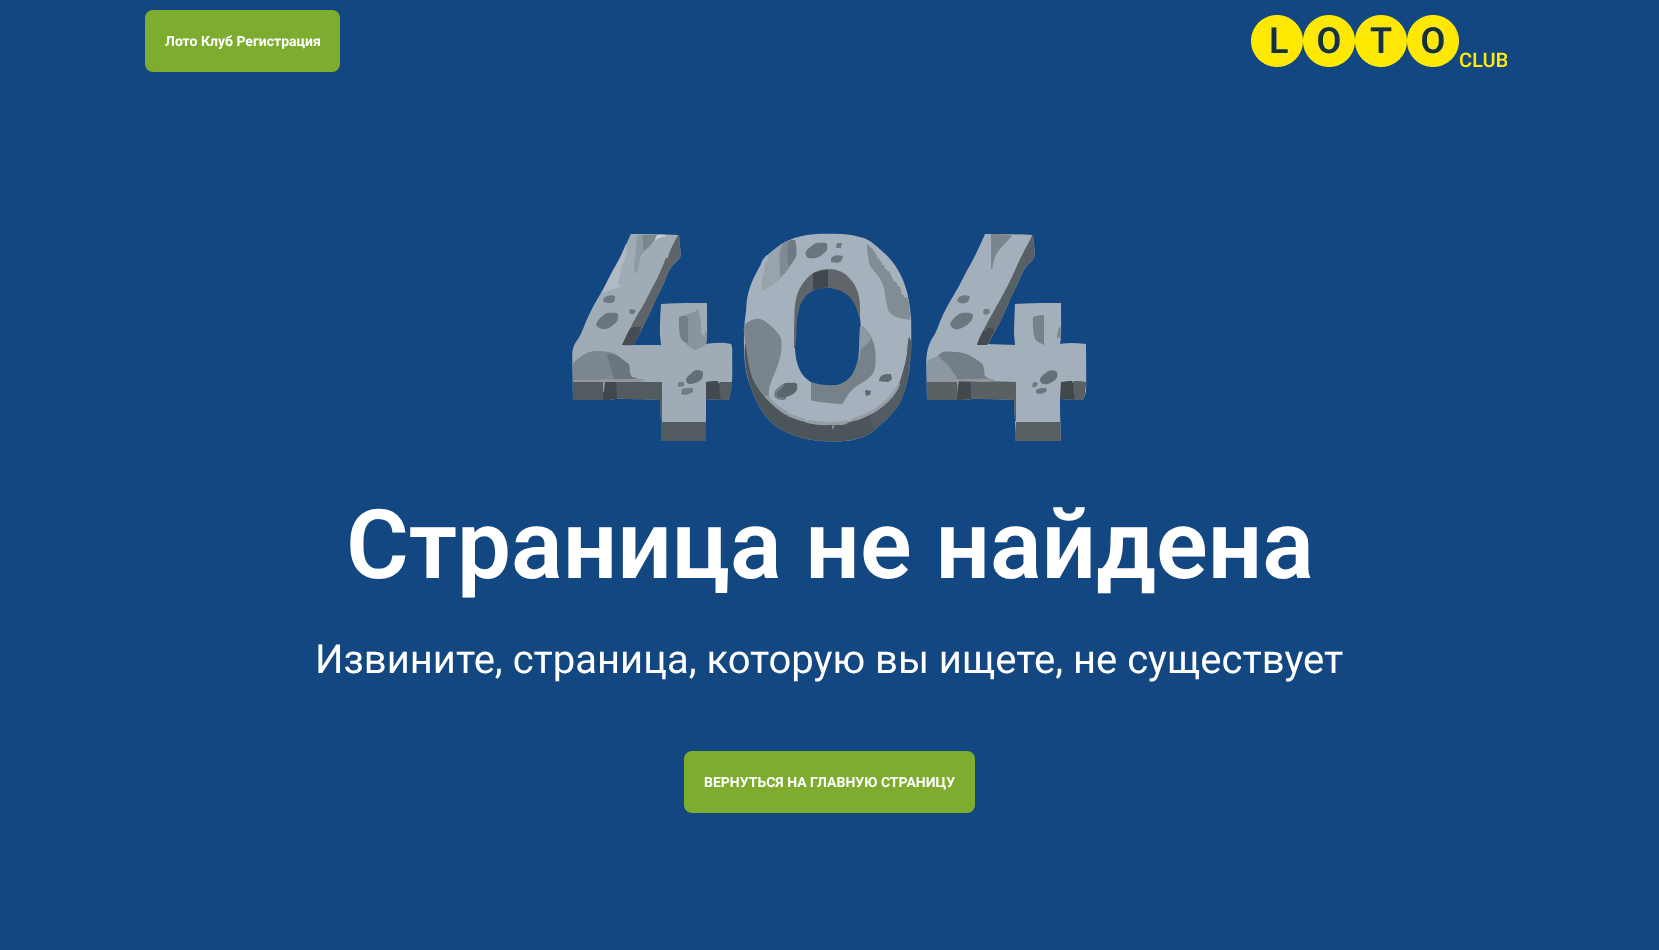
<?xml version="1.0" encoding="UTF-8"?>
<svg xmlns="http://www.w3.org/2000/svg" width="1659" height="950">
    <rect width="100%" height="100%" fill="#134782"/>
    <rect x="145" y="10" width="195" height="62" rx="8" fill="#7EAC2F"/>
    <text x="165" y="46" font-family="Roboto" font-size="14" font-weight="700" fill="#FFFFFF">Лото Клуб Регистрация</text>
    <image x="1251" y="15" width="256" height="53" href="img_01.png"/>
    <image x="572" y="233" width="515" height="209" href="img_02.png"/>
    <text x="346" y="578" font-family="Roboto" font-size="96" font-weight="600" fill="#FFFFFF">Страница не найдена</text>
    <text x="315" y="673" font-family="Roboto" font-size="40" fill="#FFFFFF">Извините, страница, которую вы ищете, не существует</text>
    <rect x="684" y="751" width="291" height="62" rx="8" fill="#7EAC2F"/>
    <text x="704" y="787" font-family="Roboto" font-size="14" font-weight="700" fill="#FFFFFF">ВЕРНУТЬСЯ НА ГЛАВНУЮ СТРАНИЦУ</text>
</svg>
